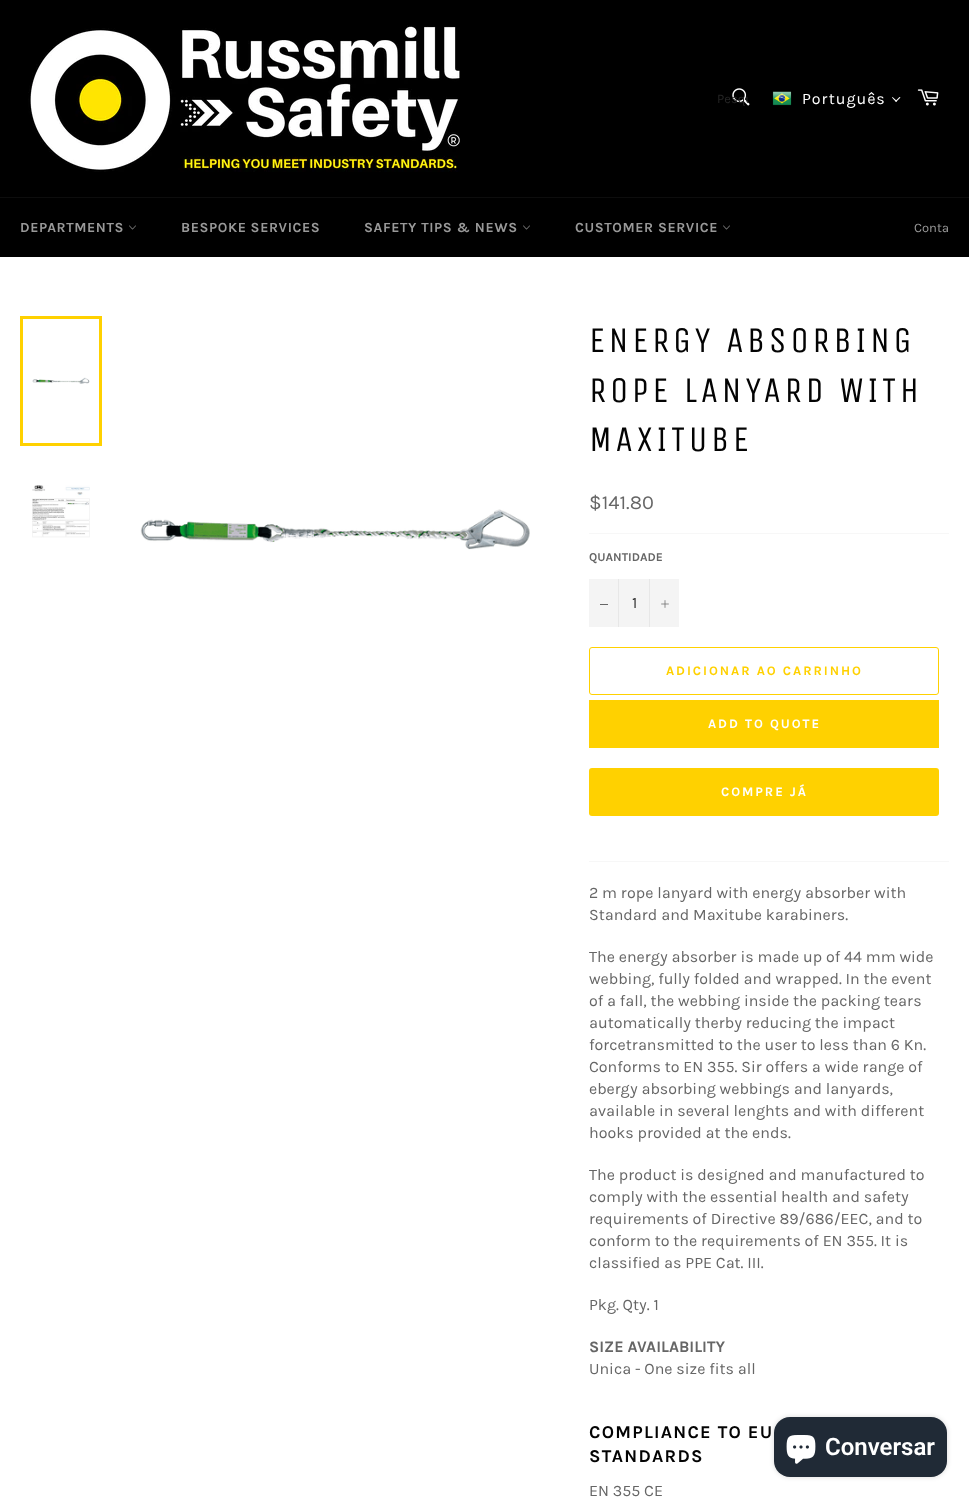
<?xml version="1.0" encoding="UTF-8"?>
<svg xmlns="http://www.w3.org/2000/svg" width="969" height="1498">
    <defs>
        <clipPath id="clip1"><rect x="717" y="91" width="32" height="15"/></clipPath>
        <filter id="blur1" x="-50%" y="-200%" width="200%" height="500%"><feGaussianBlur stdDeviation="2.5"/></filter>
    </defs>
    <rect width="100%" height="100%" fill="#000000"/>
    <image x="28" y="25" width="432" height="147" href="img_01.png"/>
    <image x="732" y="88" width="18" height="18" href="img_02.png"/>
    <g clip-path="url(#clip1)">
        <text x="717" y="103" font-family="Karla" font-size="13" fill="#252525">Pesqu</text>
    </g>
    <image x="772" y="91" width="20" height="15" href="img_03.png"/>
    <text x="802" y="104" font-family="Karla" font-size="16" letter-spacing="1" fill="#FFFFFF">Português</text>
    <path d="M 899.5 97 L 900.5 97.5 L 896 102 L 895.5 101 Z" fill="#FFFFFF"/>
    <path d="M 892.5 97 L 897 101 L 896 102 L 892 97.5 Z" fill="#FFFFFF"/>
    <image x="917" y="89" width="22" height="17" href="img_04.png"/>
    <rect x="0" y="197" width="969" height="1" fill="#0D0D0D"/>
    <text x="20" y="232" font-family="Karla" font-size="14" font-weight="700" letter-spacing="0.6" fill="#999999">DEPARTMENTS</text>
    <image x="129" y="225" width="7" height="5" href="img_05.png"/>
    <text x="181" y="232" font-family="Karla" font-size="14" font-weight="700" letter-spacing="0.6" fill="#999999">BESPOKE SERVICES</text>
    <text x="364" y="232" font-family="Karla" font-size="14" font-weight="700" letter-spacing="0.6" fill="#999999">SAFETY TIPS &amp; NEWS</text>
    <image x="523" y="225" width="7" height="5" href="img_05.png"/>
    <text x="575" y="232" font-family="Karla" font-size="14" font-weight="700" letter-spacing="0.6" fill="#999999">CUSTOMER SERVICE</text>
    <image x="723" y="225" width="7" height="5" href="img_05.png"/>
    <text x="914" y="232" font-family="Karla" font-size="13" fill="#999999">Conta</text>
    <rect x="0" y="257" width="969" height="1241" fill="#FFFFFF"/>
    <image x="32" y="377" width="58" height="7" href="img_06.png"/>
    <rect x="21.5" y="317.5" width="79" height="127" fill="none" stroke="#FFD100" stroke-width="3"/>
    <image x="32" y="485" width="58" height="53" href="img_07.png"/>
    <image x="140" y="509" width="390" height="41" href="img_08.png"/>
    <text font-family="Unica One" font-size="36" letter-spacing="3.6" fill="#030303">
        <tspan x="589" y="352">ENERGY ABSORBING</tspan>
        <tspan x="589" y="402">ROPE LANYARD WITH</tspan>
        <tspan x="589" y="451">MAXITUBE</tspan>
    </text>
    <text x="589" y="509" font-family="Karla" font-size="20" fill="#666666">$141.80</text>
    <rect x="589" y="533" width="360" height="1" fill="#F7F7F7"/>
    <text x="589" y="561" font-family="Karla" font-size="12" font-weight="700" fill="#666666">QUANTIDADE</text>
    <rect x="589" y="579" width="90" height="48" fill="#F4F4F4"/>
    <rect x="618" y="579" width="1" height="48" fill="#E7E7E7"/>
    <rect x="600" y="604" width="8" height="1" fill="#666666"/>
    <text x="632" y="608" font-family="Karla" font-size="16" fill="#333333">1</text>
    <rect x="649" y="579" width="1" height="48" fill="#E7E7E7"/>
    <image x="661" y="600" width="8" height="8" href="img_09.png"/>
    <rect x="589.5" y="647.5" width="349" height="47" rx="2.5" fill="none" stroke="#FFD100"/>
    <text x="666" y="675" font-family="Karla" font-size="13" font-weight="700" letter-spacing="1.95" fill="#FFD100">ADICIONAR AO CARRINHO</text>
    <rect x="589" y="700" width="350" height="48" fill="#FFD100"/>
    <text x="708" y="728" font-family="Karla" font-size="13" font-weight="700" letter-spacing="1.95" fill="#FFFFFF">ADD TO QUOTE</text>
    <rect x="589" y="768" width="350" height="48" rx="3" fill="#FFD100"/>
    <text x="721" y="796" font-family="Karla" font-size="13" font-weight="700" letter-spacing="1.95" fill="#FFFFFF">COMPRE JÁ</text>
    <rect x="589" y="861" width="360" height="1" fill="#F7F7F7"/>
    <text font-family="Karla" font-size="16" fill="#666666">
        <tspan x="589" y="898">2 m rope lanyard with energy absorber with</tspan>
        <tspan x="589" y="920">Standard and Maxitube karabiners.</tspan>
    </text>
    <text font-family="Karla" font-size="16" fill="#666666">
        <tspan x="589" y="962">The energy absorber is made up of 44 mm wide</tspan>
        <tspan x="589" y="984">webbing, fully folded and wrapped. In the event</tspan>
        <tspan x="589" y="1006">of a fall, the webbing inside the packing tears</tspan>
        <tspan x="589" y="1028">automatically therby reducing the impact</tspan>
        <tspan x="589" y="1050">forcetransmitted to the user to less than 6 Kn.</tspan>
        <tspan x="589" y="1072">Conforms to EN 355. Sir offers a wide range of</tspan>
        <tspan x="589" y="1094">ebergy absorbing webbings and lanyards,</tspan>
        <tspan x="589" y="1116">available in several lenghts and with different</tspan>
        <tspan x="589" y="1138">hooks provided at the ends.</tspan>
    </text>
    <text font-family="Karla" font-size="16" fill="#666666">
        <tspan x="589" y="1180">The product is designed and manufactured to</tspan>
        <tspan x="589" y="1202">comply with the essential health and safety</tspan>
        <tspan x="589" y="1224">requirements of Directive 89/686/EEC, and to</tspan>
        <tspan x="589" y="1246">conform to the requirements of EN 355. It is</tspan>
        <tspan x="589" y="1268">classified as PPE Cat. III.</tspan>
    </text>
    <text x="589" y="1310" font-family="Karla" font-size="16" fill="#666666">Pkg. Qty. 1</text>
    <text x="589" y="1352" font-family="Karla" font-size="16" font-weight="700" fill="#666666">SIZE AVAILABILITY</text>
    <text x="589" y="1374" font-family="Karla" font-size="16" fill="#666666">Unica - One size fits all</text>
    <text font-family="Karla" font-size="18" font-weight="700" letter-spacing="1.25" fill="#030303">
        <tspan x="589" y="1438">COMPLIANCE TO EU</tspan>
        <tspan x="589" y="1462">STANDARDS</tspan>
    </text>
    <text x="589" y="1496" font-family="Karla" font-size="16" fill="#666666">EN 355 CE</text>
    <rect x="774" y="1417" width="173" height="60" rx="16" fill="#000000" fill-opacity="0.15" filter="url(#blur1)"/>
    <rect x="774" y="1417" width="173" height="60" rx="16" fill="#202A36"/>
    <image x="786" y="1435" width="30" height="29" href="img_10.png"/>
    <text x="825" y="1455" font-family="Roboto" font-size="24" font-weight="600" fill="#FFFFFF">Conversar</text>
</svg>
